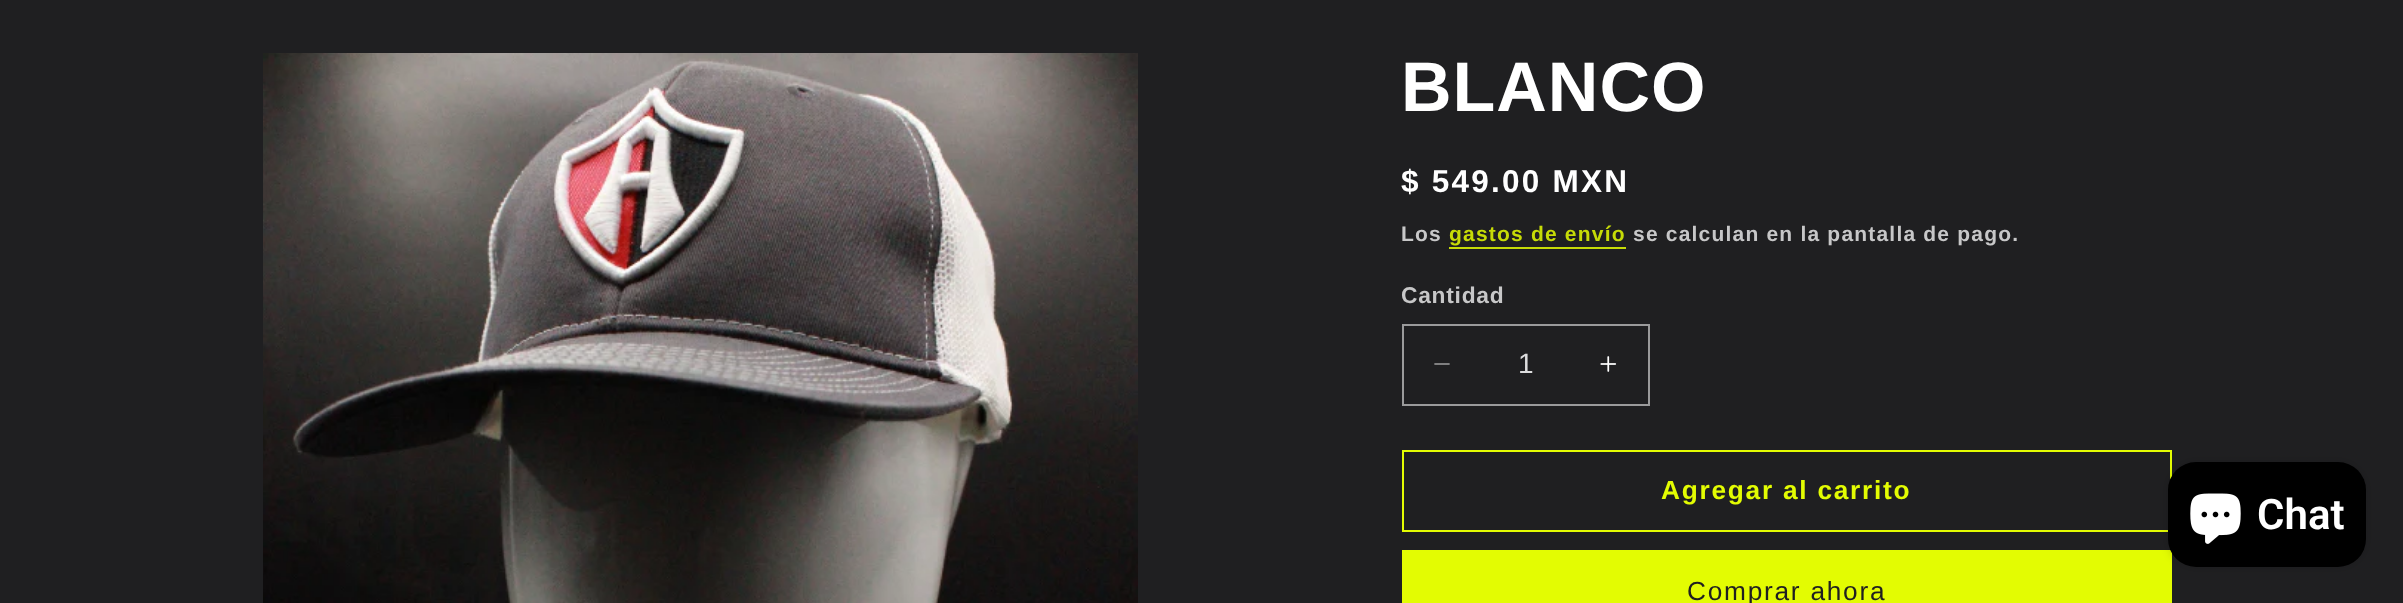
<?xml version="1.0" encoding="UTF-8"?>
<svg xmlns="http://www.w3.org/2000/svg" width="2403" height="603">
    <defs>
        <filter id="blur1" x="-50%" y="-200%" width="200%" height="500%"><feGaussianBlur stdDeviation="4.5"/></filter>
    </defs>
    <rect width="100%" height="100%" fill="#1F1F21"/>
    <image x="263" y="53" width="875" height="550" href="img_01.png"/>
    <text x="1401" y="111" font-family="Liberation Sans" font-size="70" font-weight="700" letter-spacing="1" fill="#FFFFFF">BLANCO</text>
    <text x="1401" y="192" font-family="Liberation Sans" font-size="31.5" font-weight="700" letter-spacing="2.25" fill="#FFFFFF">$ 549.00 MXN</text>
    <text x="1401" y="241" font-family="Liberation Sans" font-size="21" font-weight="700" letter-spacing="1.2" fill="#C7C7C8">Los</text>
    <text x="1449" y="241" font-family="Liberation Sans" font-size="21" font-weight="700" letter-spacing="1.2" fill="#C6DB07">gastos de envío</text>
    <rect x="1449" y="247" width="177" height="2" fill="#C6DB07"/>
    <text x="1633" y="241" font-family="Liberation Sans" font-size="21" font-weight="700" letter-spacing="1.2" fill="#C7C7C8">se calculan en la pantalla de pago.</text>
    <text x="1401" y="303" font-family="Liberation Sans" font-size="22.75" font-weight="700" letter-spacing="0.75" fill="#C7C7C8">Cantidad</text>
    <image x="1434" y="363" width="16" height="2" href="img_02.png"/>
    <image x="1600" y="356" width="17" height="16" href="img_03.png"/>
    <rect x="1403" y="325" width="246" height="80" fill="none" stroke="#9A9A9B" stroke-width="2"/>
    <text x="1518" y="373" font-family="Liberation Sans" font-size="28" fill="#DDDDDE">1</text>
    <rect x="1403" y="451" width="768" height="80" fill="none" stroke="#E3FC02" stroke-width="2"/>
    <text x="1661" y="499" font-family="Liberation Sans" font-size="26.25" font-weight="700" letter-spacing="1.75" fill="#E3FC02">Agregar al carrito</text>
    <rect x="1402" y="550" width="770" height="53" fill="#E3FC02"/>
    <text x="1687" y="600" font-family="Liberation Sans" font-size="26.25" letter-spacing="1.75" fill="#1F1F21">Comprar ahora</text>
    <rect x="2168" y="462" width="198" height="105" rx="28" fill="#000000" fill-opacity="0.15" filter="url(#blur1)"/>
    <rect x="2168" y="462" width="198" height="105" rx="28" fill="#000000"/>
    <image x="2190" y="493" width="51" height="51" href="img_04.png"/>
    <text x="2257" y="529" font-family="Roboto" font-size="42" font-weight="600" fill="#FFFFFF">Chat</text>
</svg>
